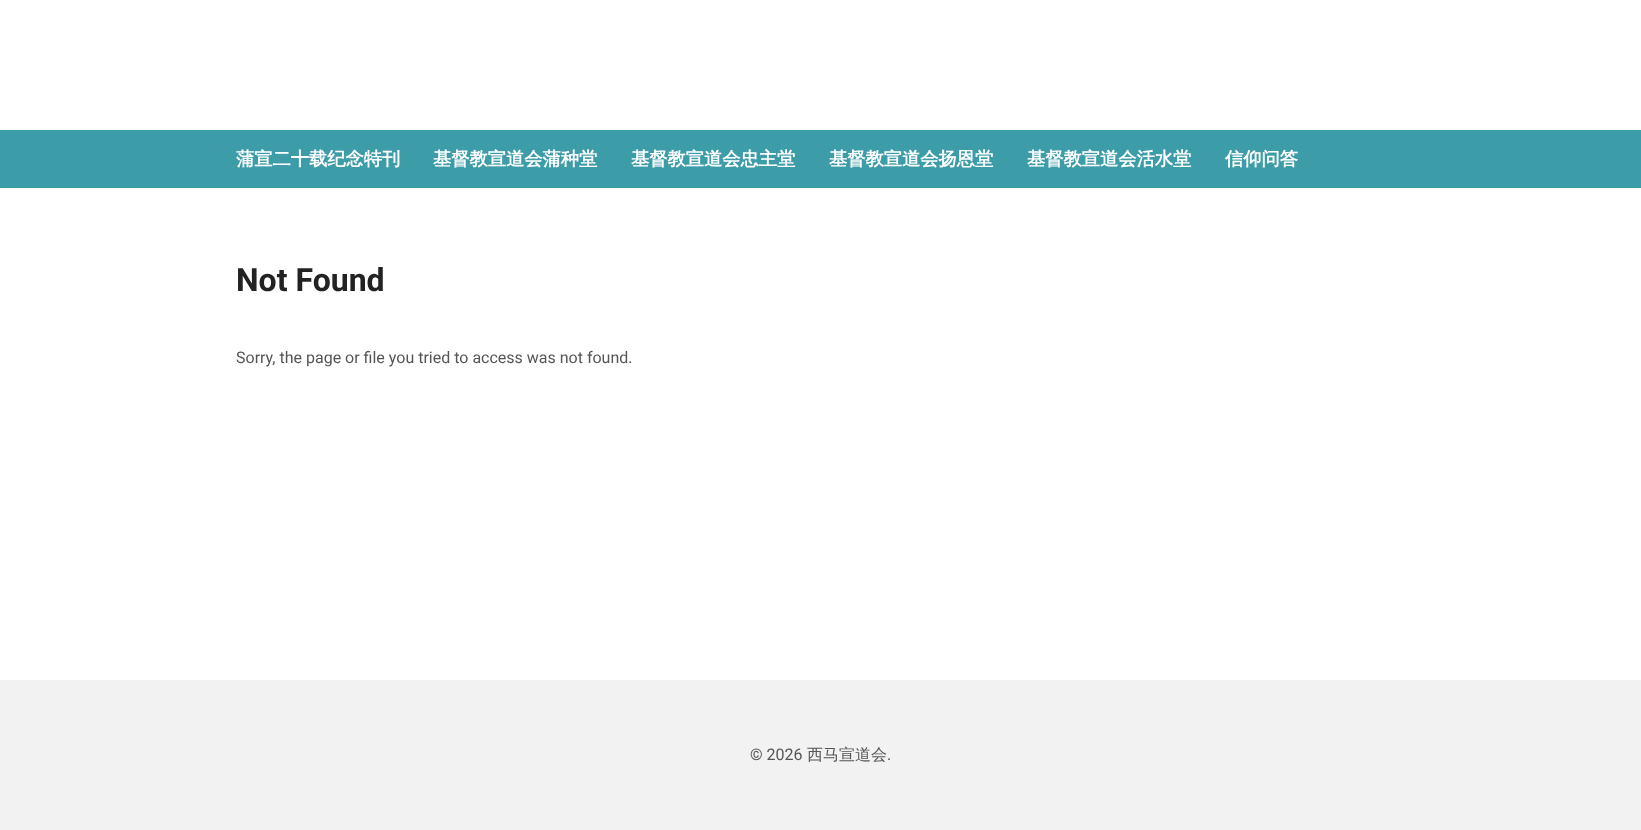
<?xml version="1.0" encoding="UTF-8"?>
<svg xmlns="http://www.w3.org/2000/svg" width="1641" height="830">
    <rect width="100%" height="100%" fill="#FFFFFF"/>
    <rect x="0" y="130" width="1641" height="58" fill="#3C9CA7"/>
    <text x="236" y="165" font-family="WenQuanYi Zen Hei" font-size="18.25" font-weight="700" fill="#FFFFFF">蒲宣二十载纪念特刊</text>
    <text x="433" y="165" font-family="WenQuanYi Zen Hei" font-size="18.25" font-weight="700" fill="#FFFFFF">基督教宣道会蒲种堂</text>
    <text x="631" y="165" font-family="WenQuanYi Zen Hei" font-size="18.25" font-weight="700" fill="#FFFFFF">基督教宣道会忠主堂</text>
    <text x="829" y="165" font-family="WenQuanYi Zen Hei" font-size="18.25" font-weight="700" fill="#FFFFFF">基督教宣道会扬恩堂</text>
    <text x="1027" y="165" font-family="WenQuanYi Zen Hei" font-size="18.25" font-weight="700" fill="#FFFFFF">基督教宣道会活水堂</text>
    <text x="1225" y="165" font-family="WenQuanYi Zen Hei" font-size="18.25" font-weight="700" fill="#FFFFFF">信仰问答</text>
    <text x="236" y="291" font-family="Roboto" font-size="32" font-weight="700" fill="#222222">Not Found</text>
    <text x="236" y="363" font-family="Roboto" font-size="16" fill="#555555">Sorry, the page or file you tried to access was not found.</text>
    <rect x="0" y="680" width="1641" height="150" fill="#F2F2F2"/>
    <text x="750" y="760" font-family="Roboto" font-size="16" fill="#555555">© 2026</text>
    <text x="807" y="760" font-family="WenQuanYi Zen Hei" font-size="16" font-weight="500" fill="#555555">西马宣道会</text>
    <text x="887" y="760" font-family="Roboto" font-size="16" fill="#555555">.</text>
</svg>
